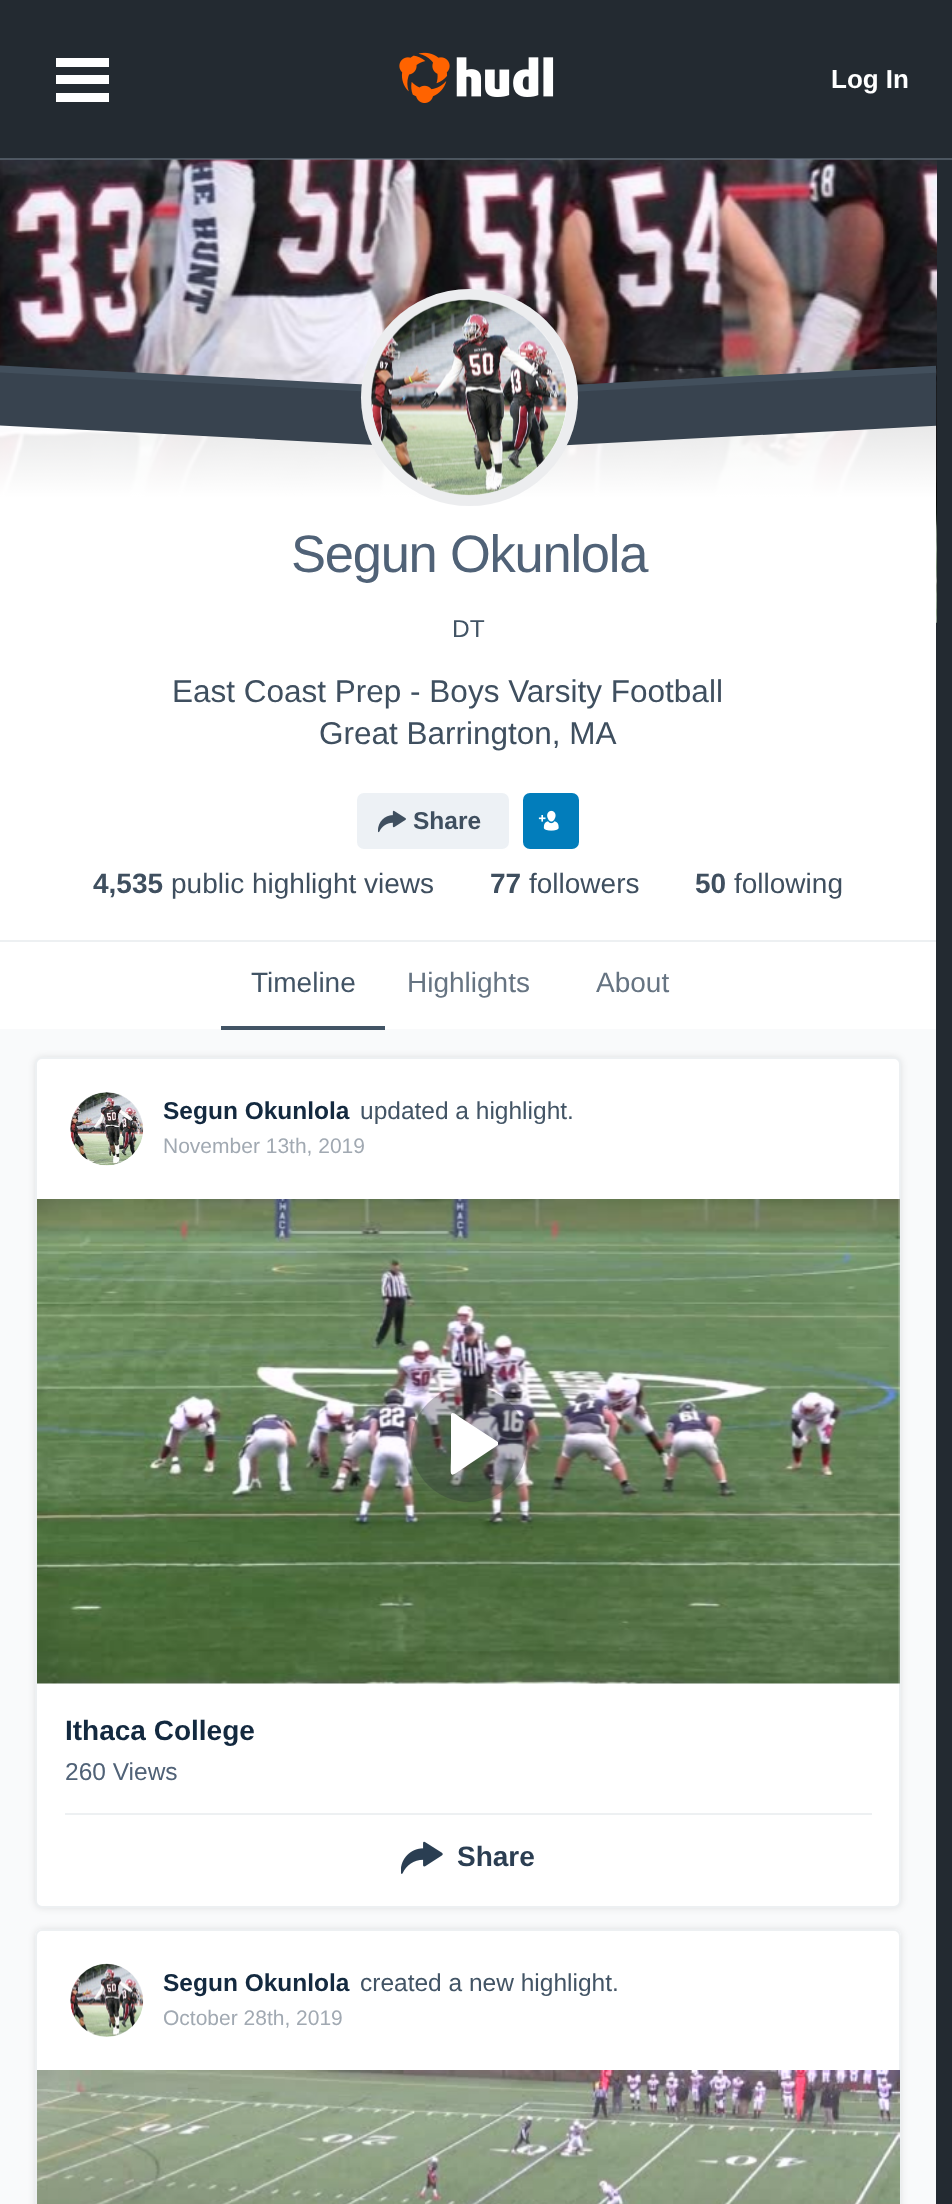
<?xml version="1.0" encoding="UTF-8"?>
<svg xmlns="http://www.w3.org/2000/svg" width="952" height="2204">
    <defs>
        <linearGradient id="g1" gradientUnits="userSpaceOnUse" x1="468" y1="387" x2="468" y2="940"><stop offset="0" stop-color="#FFFFFF" stop-opacity="0.85"/><stop offset="0.2" stop-color="#FFFFFF"/></linearGradient>
        <clipPath id="clip1"><rect x="0" y="355" width="936" height="88"/></clipPath>
        <clipPath id="clip2"><rect x="0" y="362" width="936" height="88"/></clipPath>
        <filter id="blur1" x="-50%" y="-200%" width="200%" height="500%"><feGaussianBlur stdDeviation="3.5"/></filter>
    </defs>
    <rect width="100%" height="100%" fill="#232A31"/>
    <image x="0" y="159" width="937" height="464" href="img_02.png"/>
    <rect x="0" y="158" width="952" height="2" fill="#687581" fill-opacity="0.6"/>
    <rect x="56" y="58" width="53" height="9" fill="#FFFFFF"/>
    <rect x="56" y="75" width="53" height="9" fill="#FFFFFF"/>
    <rect x="56" y="93" width="53" height="9" fill="#FFFFFF"/>
    <image x="399" y="52" width="155" height="51" href="img_01.png"/>
    <text x="831" y="88" font-family="Liberation Sans" font-size="26" font-weight="700" fill="#FFFFFF">Log In</text>
    <rect x="0" y="425" width="936" height="515" fill="url(#g1)"/>
    <rect x="0" y="940" width="936" height="2" fill="#EDF0F2"/>
    <g clip-path="url(#clip1)">
        <path d="M -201 355 L 472 390 L 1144 355 V 408 L 472 443 L -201 408 Z" fill="#424F5C" fill-rule="evenodd"/>
    </g>
    <g clip-path="url(#clip2)">
        <path d="M -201 362 L 472 397 L 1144 362 V 415 L 472 450 L -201 415 Z" fill="#38434F" fill-rule="evenodd"/>
    </g>
    <circle cx="469.5" cy="397.5" r="108.5" fill="#FFFFFF"/>
    <circle cx="469.5" cy="397.5" r="103" fill="none" stroke="#45525E" stroke-opacity="0.1" stroke-width="11"/>
    <image x="371" y="299" width="196" height="197" href="img_03.png"/>
    <text x="291" y="572" font-family="Liberation Sans" font-size="52.5" letter-spacing="-1.25" fill="#506277">Segun Okunlola</text>
    <text x="452" y="637" font-family="Liberation Sans" font-size="24.5" fill="#425465">DT</text>
    <text x="172" y="702" font-family="Liberation Sans" font-size="31.5" fill="#3F4F5F">East Coast Prep - Boys Varsity Football</text>
    <text x="319" y="744" font-family="Liberation Sans" font-size="31.5" fill="#3F4F5F">Great Barrington, MA</text>
    <rect x="357" y="793" width="152" height="56" rx="7" fill="#EDF1F5"/>
    <image x="378" y="810" width="28" height="23" href="img_04.png"/>
    <text x="413" y="829" font-family="Liberation Sans" font-size="24.5" font-weight="700" fill="#3F4F5F">Share</text>
    <rect x="523" y="793" width="56" height="56" rx="7" fill="#027DBB"/>
    <image x="538" y="810" width="21" height="21" href="img_05.png"/>
    <text x="93" y="893" font-family="Liberation Sans" font-size="28" font-weight="700" fill="#3F4F5F">4,535</text>
    <text x="171" y="893" font-family="Liberation Sans" font-size="28" fill="#3F4F5F">public highlight views</text>
    <text x="490" y="893" font-family="Liberation Sans" font-size="28" font-weight="700" fill="#3F4F5F">77</text>
    <text x="529" y="893" font-family="Liberation Sans" font-size="28" fill="#3F4F5F">followers</text>
    <text x="695" y="893" font-family="Liberation Sans" font-size="28" font-weight="700" fill="#3F4F5F">50</text>
    <text x="734" y="893" font-family="Liberation Sans" font-size="28" fill="#3F4F5F">following</text>
    <rect x="0" y="942" width="936" height="87" fill="#FFFFFF"/>
    <rect x="0" y="1029" width="936" height="1175" fill="#F9FAFB"/>
    <rect x="221" y="1026" width="164" height="4" fill="#13293F" fill-opacity="0.8"/>
    <text x="251" y="992" font-family="Liberation Sans" font-size="28" fill="#425465">Timeline</text>
    <text x="407" y="992" font-family="Liberation Sans" font-size="28" fill="#667482">Highlights</text>
    <text x="596" y="992" font-family="Liberation Sans" font-size="28" fill="#667482">About</text>
    <rect x="35" y="1057" width="866" height="851" rx="7" fill="#000000" fill-opacity="0.1" filter="url(#blur1)"/>
    <rect x="36" y="1058" width="864" height="849" rx="6" fill="#FFFFFF" stroke="#EDF0F2" stroke-width="2"/>
    <image x="70" y="1092" width="74" height="74" href="img_06.png"/>
    <text x="163" y="1119" font-family="Liberation Sans" font-size="24.5" font-weight="700" fill="#13293F">Segun Okunlola</text>
    <text x="360" y="1119" font-family="Liberation Sans" font-size="24.5" fill="#425465">updated a highlight.</text>
    <text x="163" y="1153" font-family="Liberation Sans" font-size="21" fill="#A1A9B2">November 13th, 2019</text>
    <image x="37" y="1199" width="863" height="485" href="img_07.png"/>
    <circle cx="469" cy="1444" r="58" fill="#232A31" fill-opacity="0.3"/>
    <path d="M 451 1414 V 1453 C 451 1480 447 1479 468 1465 L 498 1445 C 498 1444 498 1443 498 1442 L 461 1418 C 458 1416 453 1411 451 1414 Z" fill="#FFFFFF" fill-rule="evenodd"/>
    <text x="65" y="1740" font-family="Liberation Sans" font-size="28" font-weight="700" fill="#13293F">Ithaca College</text>
    <text x="65" y="1780" font-family="Liberation Sans" font-size="24.5" fill="#506277">260 Views</text>
    <rect x="65" y="1813" width="807" height="2" fill="#EDF0F2"/>
    <image x="401" y="1841" width="42" height="33" href="img_08.png"/>
    <text x="457" y="1866" font-family="Liberation Sans" font-size="28" font-weight="700" fill="#2B3E52">Share</text>
    <rect x="35" y="1929" width="866" height="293" rx="7" fill="#000000" fill-opacity="0.1" filter="url(#blur1)"/>
    <path d="M 42 1929 H 894 C 898 1929 901 1932 901 1936 V 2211 H 35 V 1936 C 35 1932 38 1929 42 1929 Z" fill="#FFFFFF"/>
    <rect x="36" y="1930" width="864" height="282" rx="6" fill="none" stroke="#EDF0F2" stroke-width="2"/>
    <image x="70" y="1963" width="74" height="74" href="img_09.png"/>
    <text x="163" y="1991" font-family="Liberation Sans" font-size="24.5" font-weight="700" fill="#13293F">Segun Okunlola</text>
    <text x="360" y="1991" font-family="Liberation Sans" font-size="24.5" fill="#425465">created a new highlight.</text>
    <text x="163" y="2025" font-family="Liberation Sans" font-size="21" fill="#A1A9B2">October 28th, 2019</text>
    <image x="37" y="2070" width="863" height="134" href="img_10.png"/>
</svg>
